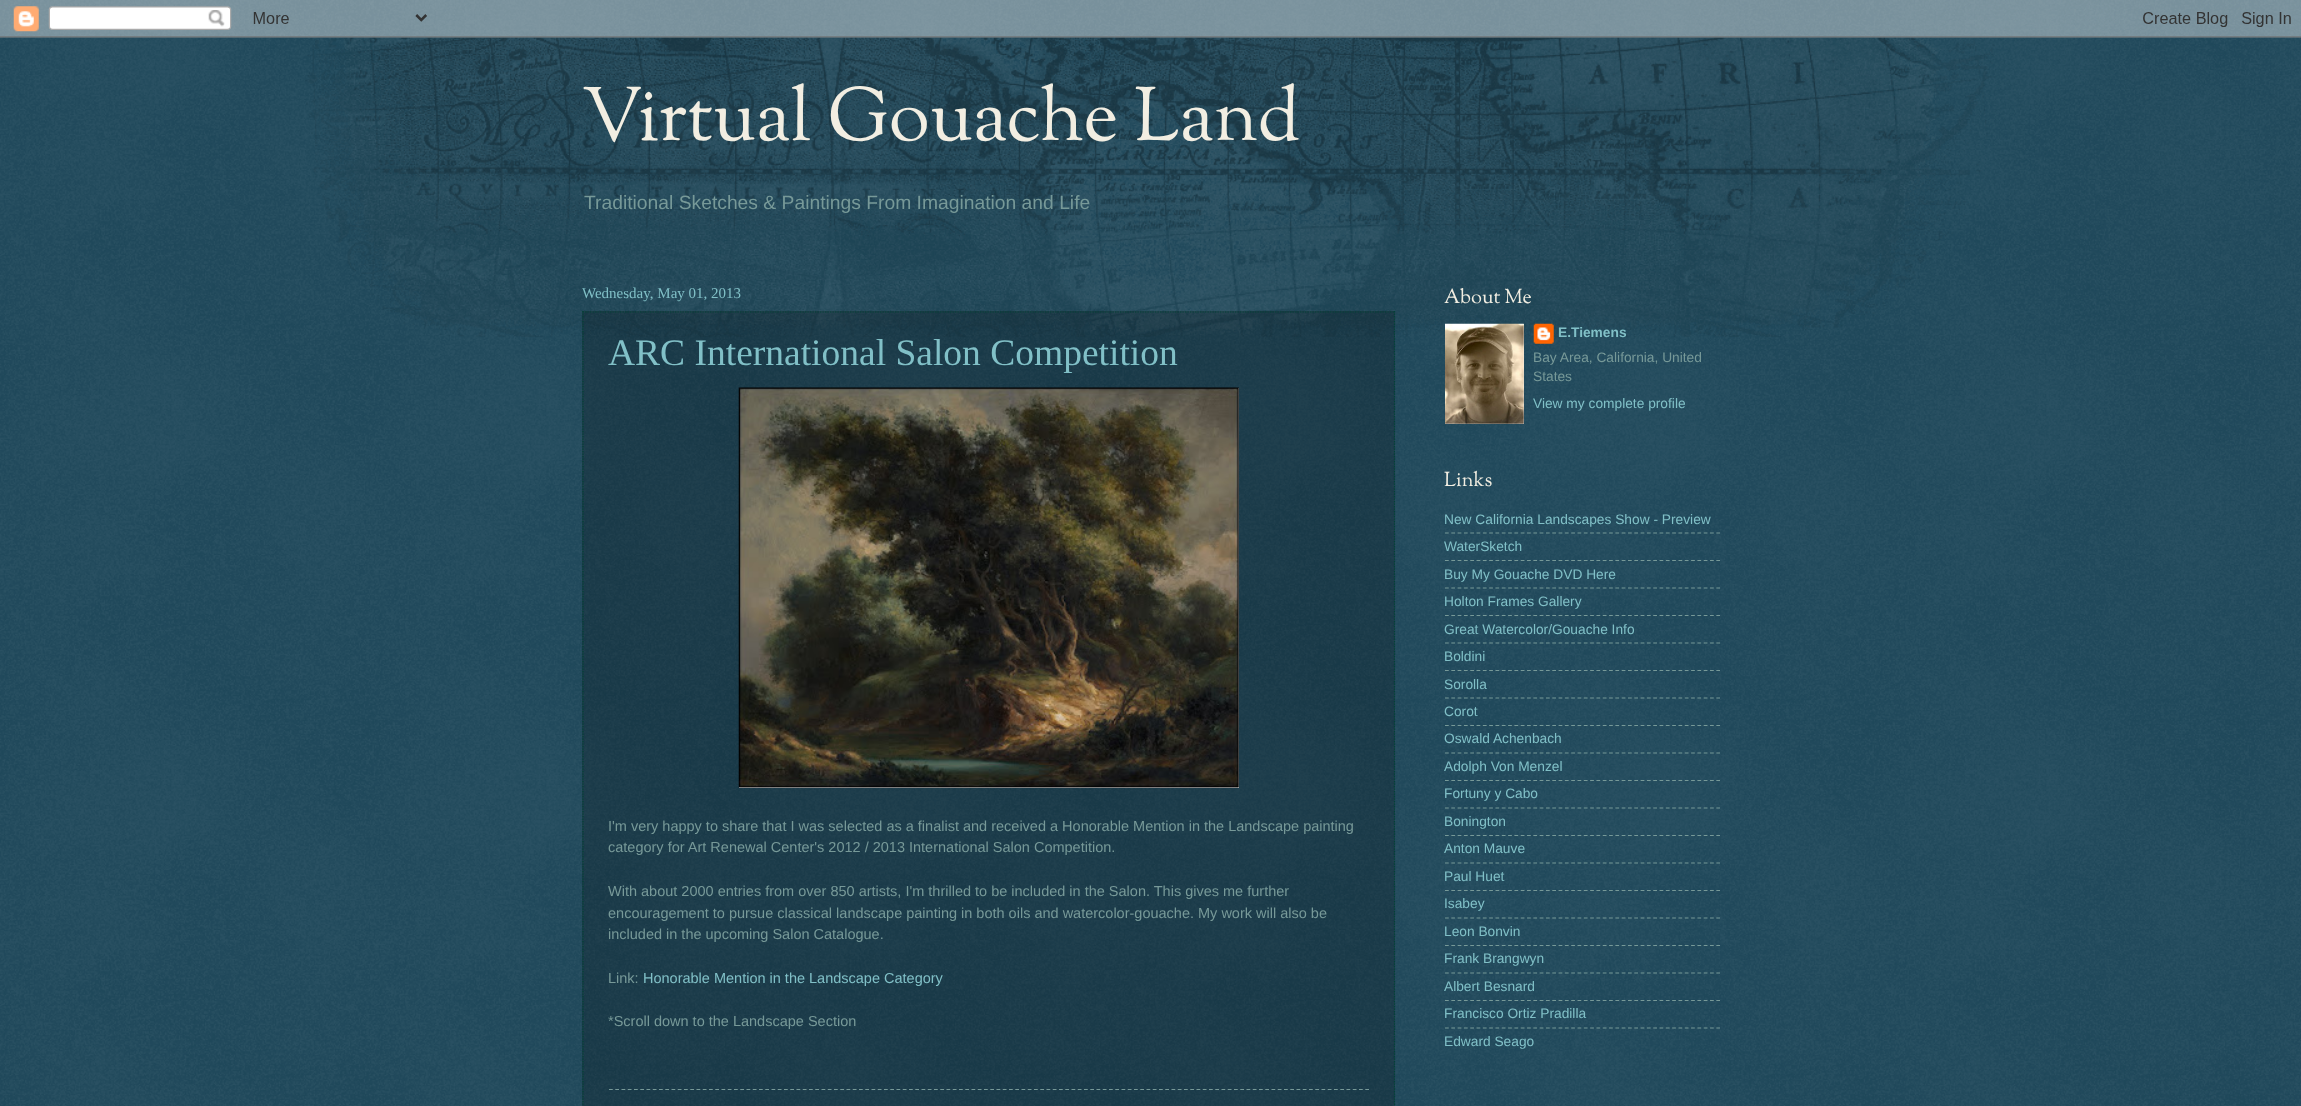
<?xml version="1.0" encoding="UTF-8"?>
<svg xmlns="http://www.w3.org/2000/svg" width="2301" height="1106">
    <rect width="100%" height="100%" fill="#002F44"/>
    <image x="0" y="0" width="2301" height="1106" href="img_01.png"/>
    <image x="305" y="37" width="1690" height="300" href="img_03.png"/>
    <image x="0" y="0" width="2301" height="38" href="img_02.png"/>
    <text x="582" y="140" font-family="OFL Sorts Mill Goudy TT" font-size="75" font-weight="500" fill="#F2EEE2">Virtual Gouache Land</text>
    <text x="584" y="209" font-family="Liberation Sans" font-size="19.3" fill="#779998">Traditional Sketches &amp; Paintings From Imagination and Life</text>
    <text x="582" y="298" font-family="Liberation Serif" font-size="15" fill="#81C0C7">Wednesday, May 01, 2013</text>
    <rect x="582" y="311" width="813" height="795" fill="#000000" fill-opacity="0.2"/>
    <path d="M 582.5 312 H 1395" fill="none" stroke="#004436" stroke-width="1.2" stroke-dasharray="1.25 1.25"/>
    <path d="M 1394.5 311 V 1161" fill="none" stroke="#004436" stroke-width="1.2" stroke-dasharray="1.25 1.25"/>
    <path d="M 583 311 V 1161" fill="none" stroke="#004436" stroke-width="1.2" stroke-dasharray="1.25 1.25"/>
    <text x="608" y="365" font-family="Liberation Serif" font-size="37.5" fill="#81C0C7">ARC International Salon Competition</text>
    <rect x="739" y="388" width="500" height="400" fill="#FFFFFF"/>
    <image x="738" y="387" width="501" height="401" href="img_04.png"/>
    <text font-family="Liberation Sans" font-size="14.5" fill="#779998">
        <tspan x="608" y="831">I'm very happy to share that I was selected as a finalist and received a Honorable Mention in the Landscape painting</tspan>
        <tspan x="608" y="852">category for Art Renewal Center's 2012 / 2013 International Salon Competition.</tspan>
    </text>
    <text font-family="Liberation Sans" font-size="14.5" fill="#779998">
        <tspan x="608" y="896">With about 2000 entries from over 850 artists, I'm thrilled to be included in the Salon. This gives me further</tspan>
        <tspan x="608" y="918">encouragement to pursue classical landscape painting in both oils and watercolor-gouache. My work will also be</tspan>
        <tspan x="608" y="939">included in the upcoming Salon Catalogue.</tspan>
    </text>
    <text x="608" y="983" font-family="Liberation Sans" font-size="14.5" fill="#779998">Link:</text>
    <text x="643" y="983" font-family="Liberation Sans" font-size="14.5" fill="#81C0C7">Honorable Mention in the Landscape Category</text>
    <text x="608" y="1026" font-family="Liberation Sans" font-size="14.5" fill="#779998">*Scroll down to the Landscape Section</text>
    <path d="M 609 1089.5 H 1369" fill="none" stroke="#779998" stroke-width="1.2" stroke-dasharray="3.75 2.5"/>
    <text x="1444" y="303" font-family="OFL Sorts Mill Goudy TT" font-size="20" font-weight="500" fill="#F2EEE2">About Me</text>
    <rect x="1445" y="324" width="79" height="100" fill="#FFFFFF"/>
    <image x="1445" y="323" width="79" height="101" href="img_05.png"/>
    <image x="1533" y="323" width="21" height="21" href="img_06.png"/>
    <text x="1558" y="337" font-family="Liberation Sans" font-size="13.75" font-weight="700" fill="#81C0C7">E.Tiemens</text>
    <text font-family="Liberation Sans" font-size="13.75" fill="#779998">
        <tspan x="1533" y="362">Bay Area, California, United</tspan>
        <tspan x="1533" y="381">States</tspan>
    </text>
    <text x="1533" y="408" font-family="Liberation Sans" font-size="13.75" fill="#81C0C7">View my complete profile</text>
    <text x="1444" y="486" font-family="OFL Sorts Mill Goudy TT" font-size="20" font-weight="500" fill="#F2EEE2">Links</text>
    <text x="1444" y="524" font-family="Liberation Sans" font-size="13.75" fill="#81C0C7">New California Landscapes Show - Preview</text>
    <path d="M 1445 533 H 1720" fill="none" stroke="#779998" stroke-width="1.2" stroke-dasharray="3.75 2.56"/>
    <text x="1444" y="551" font-family="Liberation Sans" font-size="13.75" fill="#81C0C7">WaterSketch</text>
    <path d="M 1445 560.5 H 1720" fill="none" stroke="#779998" stroke-width="1.2" stroke-dasharray="3.75 2.56"/>
    <text x="1444" y="579" font-family="Liberation Sans" font-size="13.75" fill="#81C0C7">Buy My Gouache DVD Here</text>
    <path d="M 1445 588 H 1720" fill="none" stroke="#779998" stroke-width="1.2" stroke-dasharray="3.75 2.56"/>
    <text x="1444" y="606" font-family="Liberation Sans" font-size="13.75" fill="#81C0C7">Holton Frames Gallery</text>
    <path d="M 1445 615.5 H 1720" fill="none" stroke="#779998" stroke-width="1.2" stroke-dasharray="3.75 2.56"/>
    <text x="1444" y="634" font-family="Liberation Sans" font-size="13.75" fill="#81C0C7">Great Watercolor/Gouache Info</text>
    <path d="M 1445 643 H 1720" fill="none" stroke="#779998" stroke-width="1.2" stroke-dasharray="3.75 2.56"/>
    <text x="1444" y="661" font-family="Liberation Sans" font-size="13.75" fill="#81C0C7">Boldini</text>
    <path d="M 1445 670.5 H 1720" fill="none" stroke="#779998" stroke-width="1.2" stroke-dasharray="3.75 2.56"/>
    <text x="1444" y="689" font-family="Liberation Sans" font-size="13.75" fill="#81C0C7">Sorolla</text>
    <path d="M 1445 698 H 1720" fill="none" stroke="#779998" stroke-width="1.2" stroke-dasharray="3.75 2.56"/>
    <text x="1444" y="716" font-family="Liberation Sans" font-size="13.75" fill="#81C0C7">Corot</text>
    <path d="M 1445 725.5 H 1720" fill="none" stroke="#779998" stroke-width="1.2" stroke-dasharray="3.75 2.56"/>
    <text x="1444" y="743" font-family="Liberation Sans" font-size="13.75" fill="#81C0C7">Oswald Achenbach</text>
    <path d="M 1445 753 H 1720" fill="none" stroke="#779998" stroke-width="1.2" stroke-dasharray="3.75 2.56"/>
    <text x="1444" y="771" font-family="Liberation Sans" font-size="13.75" fill="#81C0C7">Adolph Von Menzel</text>
    <path d="M 1445 780.5 H 1720" fill="none" stroke="#779998" stroke-width="1.2" stroke-dasharray="3.75 2.56"/>
    <text x="1444" y="798" font-family="Liberation Sans" font-size="13.75" fill="#81C0C7">Fortuny y Cabo</text>
    <path d="M 1445 808 H 1720" fill="none" stroke="#779998" stroke-width="1.2" stroke-dasharray="3.75 2.56"/>
    <text x="1444" y="826" font-family="Liberation Sans" font-size="13.75" fill="#81C0C7">Bonington</text>
    <path d="M 1445 835.5 H 1720" fill="none" stroke="#779998" stroke-width="1.2" stroke-dasharray="3.75 2.56"/>
    <text x="1444" y="853" font-family="Liberation Sans" font-size="13.75" fill="#81C0C7">Anton Mauve</text>
    <path d="M 1445 863 H 1720" fill="none" stroke="#779998" stroke-width="1.2" stroke-dasharray="3.75 2.56"/>
    <text x="1444" y="881" font-family="Liberation Sans" font-size="13.75" fill="#81C0C7">Paul Huet</text>
    <path d="M 1445 890.5 H 1720" fill="none" stroke="#779998" stroke-width="1.2" stroke-dasharray="3.75 2.56"/>
    <text x="1444" y="908" font-family="Liberation Sans" font-size="13.75" fill="#81C0C7">Isabey</text>
    <path d="M 1445 918 H 1720" fill="none" stroke="#779998" stroke-width="1.2" stroke-dasharray="3.75 2.56"/>
    <text x="1444" y="936" font-family="Liberation Sans" font-size="13.75" fill="#81C0C7">Leon Bonvin</text>
    <path d="M 1445 945.5 H 1720" fill="none" stroke="#779998" stroke-width="1.2" stroke-dasharray="3.75 2.56"/>
    <text x="1444" y="963" font-family="Liberation Sans" font-size="13.75" fill="#81C0C7">Frank Brangwyn</text>
    <path d="M 1445 973 H 1720" fill="none" stroke="#779998" stroke-width="1.2" stroke-dasharray="3.75 2.56"/>
    <text x="1444" y="991" font-family="Liberation Sans" font-size="13.75" fill="#81C0C7">Albert Besnard</text>
    <path d="M 1445 1000.5 H 1720" fill="none" stroke="#779998" stroke-width="1.2" stroke-dasharray="3.75 2.56"/>
    <text x="1444" y="1018" font-family="Liberation Sans" font-size="13.75" fill="#81C0C7">Francisco Ortiz Pradilla</text>
    <path d="M 1445 1028 H 1720" fill="none" stroke="#779998" stroke-width="1.2" stroke-dasharray="3.75 2.56"/>
    <text x="1444" y="1046" font-family="Liberation Sans" font-size="13.75" fill="#81C0C7">Edward Seago</text>
</svg>
